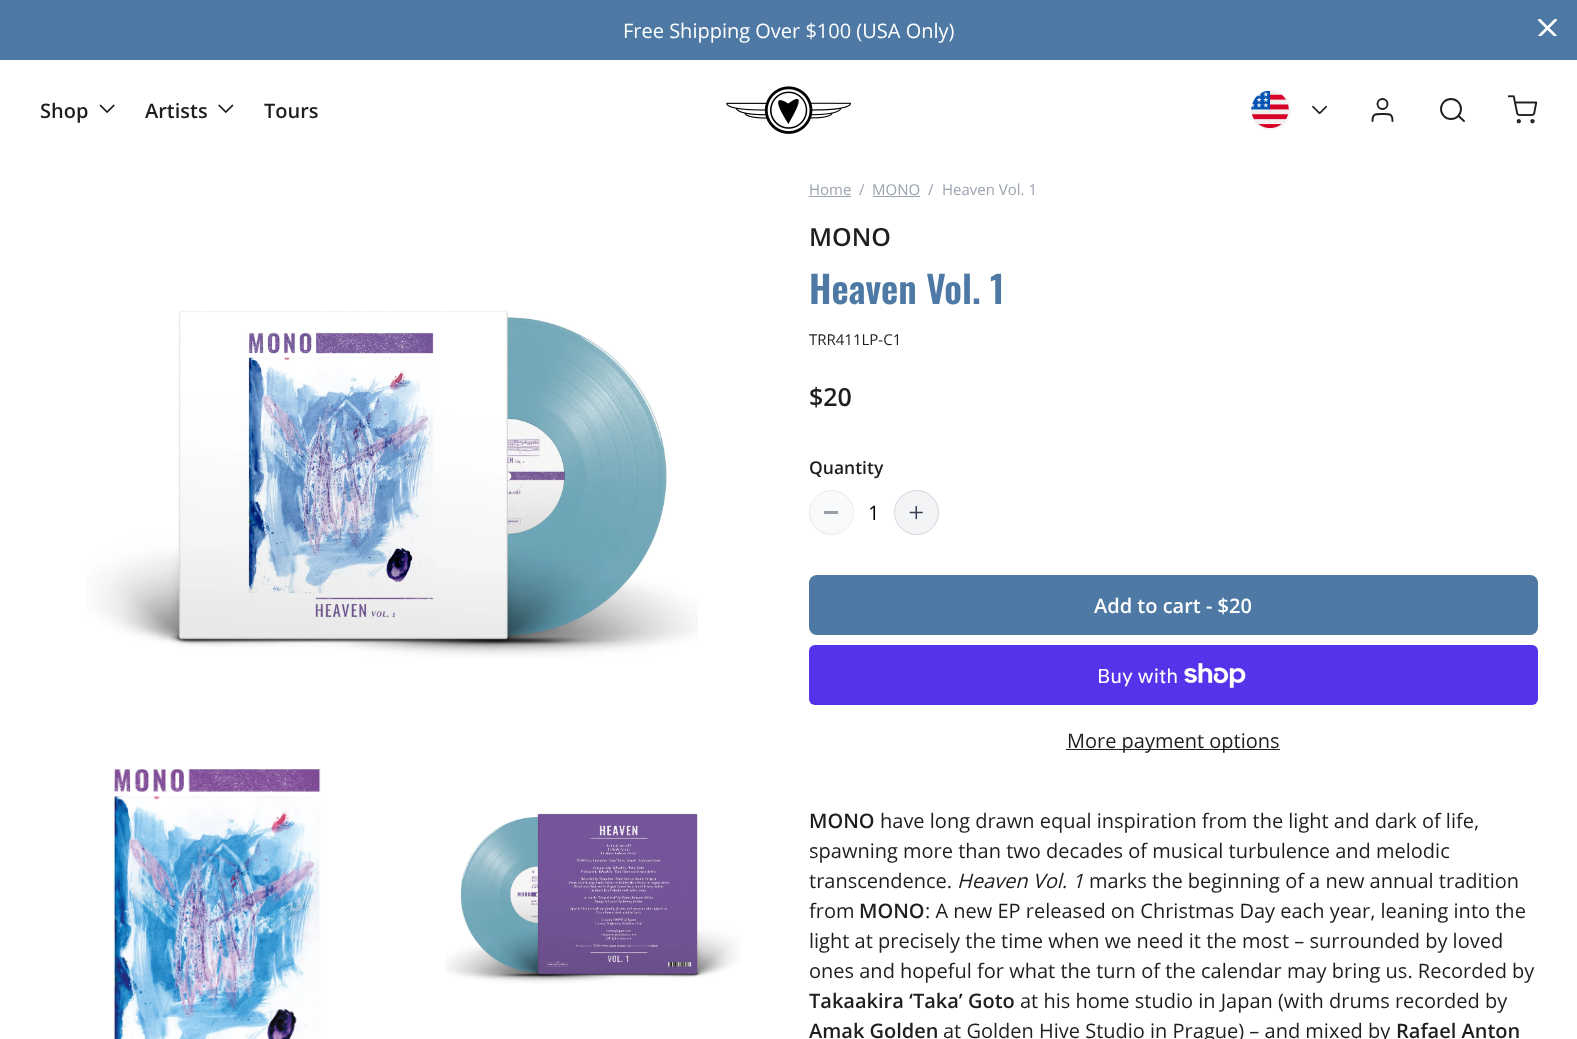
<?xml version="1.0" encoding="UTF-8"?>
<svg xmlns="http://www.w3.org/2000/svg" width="1577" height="1039">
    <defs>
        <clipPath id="clip1"><rect x="1538" y="19" width="20" height="17"/></clipPath>
    </defs>
    <rect width="100%" height="100%" fill="#FFFFFF"/>
    <rect x="0" y="0" width="1577" height="60" fill="#4D79A4"/>
    <text x="623" y="38" font-family="Open Sans" font-size="20" fill="#FFFFFF">Free Shipping Over $100 (USA Only)</text>
    <g clip-path="url(#clip1)">
        <path d="M 1539.5 36 L 1555.5 20 M 1539.5 20 L 1555.5 36" fill="none" stroke="#FFFFFF" stroke-width="2.7" stroke-linecap="round" stroke-linejoin="round"/>
    </g>
    <text x="40" y="118" font-family="Open Sans" font-size="20" font-weight="600" fill="#1E1E1E">Shop</text>
    <image x="99" y="104" width="16" height="9" href="img_01.png"/>
    <text x="145" y="118" font-family="Open Sans" font-size="20" font-weight="600" fill="#1E1E1E">Artists</text>
    <image x="218" y="104" width="16" height="9" href="img_02.png"/>
    <text x="264" y="118" font-family="Open Sans" font-size="20" font-weight="600" fill="#1E1E1E">Tours</text>
    <image x="726" y="86" width="125" height="48" href="img_03.png"/>
    <circle cx="1271" cy="110" r="20" fill="#F3F4F6"/>
    <image x="1251" y="91" width="38" height="37" href="img_04.png"/>
    <image x="1312" y="105" width="15" height="10" href="img_05.png"/>
    <path d="M 1392.5 121 C 1392.5 113.5 1389.5 114 1382.5 114 C 1375.5 114 1372.5 113.5 1372.5 121" fill="none" stroke="#1E1E1E" stroke-width="1.9" stroke-linecap="round" stroke-linejoin="round"/>
    <circle cx="1382.5" cy="104" r="5" fill="none" stroke="#1E1E1E" stroke-width="1.9"/>
    <circle cx="1451" cy="109" r="10" fill="none" stroke="#1E1E1E" stroke-width="1.9"/>
    <path d="M 1464 121 L 1458.5 116" fill="none" stroke="#1E1E1E" stroke-width="1.9" stroke-linecap="round" stroke-linejoin="round"/>
    <image x="1508" y="95" width="30" height="29" href="img_06.png"/>
    <image x="86" y="311" width="612" height="347" href="img_07.png"/>
    <image x="113" y="769" width="208" height="270" href="img_08.png"/>
    <image x="445" y="813" width="296" height="171" href="img_09.png"/>
    <text x="809" y="195" font-family="Open Sans" font-size="15" fill="#9CA3AF">Home</text>
    <rect x="809" y="196" width="42" height="1" fill="#9CA3AF"/>
    <text x="859" y="195" font-family="Open Sans" font-size="15" fill="#9CA3AF">/</text>
    <text x="872" y="195" font-family="Open Sans" font-size="15" fill="#9CA3AF">MONO</text>
    <rect x="873" y="196" width="47" height="1" fill="#9CA3AF"/>
    <text x="928" y="195" font-family="Open Sans" font-size="15" fill="#9CA3AF">/</text>
    <text x="942" y="195" font-family="Open Sans" font-size="15" fill="#9CA3AF">Heaven Vol. 1</text>
    <text x="809" y="246" font-family="Open Sans" font-size="25" font-weight="600" fill="#1E1E1E">MONO</text>
    <text x="809" y="304" font-family="Oswald" font-size="37.5" font-weight="600" fill="#4D79A4">Heaven Vol. 1</text>
    <text x="809" y="345" font-family="Open Sans" font-size="15" fill="#1E1E1E">TRR411LP-C1</text>
    <text x="809" y="406" font-family="Open Sans" font-size="25" font-weight="600" fill="#1E1E1E">$20</text>
    <text x="809" y="474" font-family="Open Sans" font-size="17.5" font-weight="600" fill="#1E1E1E">Quantity</text>
    <circle cx="831.5" cy="512.5" r="22" fill="#F9FAFB" stroke="#E8EAED"/>
    <rect x="824" y="511" width="14" height="3" fill="#989EA6"/>
    <text x="868" y="520" font-family="Open Sans" font-size="20" fill="#000000">1</text>
    <circle cx="916.5" cy="512.5" r="22" fill="#F3F4F6" stroke="#D1D5DB"/>
    <image x="909" y="505" width="14" height="15" href="img_10.png"/>
    <rect x="809" y="575" width="729" height="60" rx="8" fill="#4D79A4"/>
    <text x="1094" y="613" font-family="Open Sans" font-size="20" font-weight="600" fill="#FFFFFF">Add to cart - $20</text>
    <rect x="809" y="645" width="729" height="60" rx="6" fill="#5433EB"/>
    <text x="1097" y="683" font-family="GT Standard" font-size="20" fill="#FFFFFF">Buy with</text>
    <image x="1184" y="663" width="62" height="25" href="img_11.png"/>
    <rect x="1066" y="749" width="214" height="1" fill="#1E1E1E"/>
    <text x="1067" y="748" font-family="Open Sans" font-size="20" fill="#1E1E1E">More payment options</text>
    <text x="809" y="828" font-family="Open Sans" font-size="20" font-weight="600" fill="#1E1E1E">MONO</text>
    <text x="880" y="828" font-family="Open Sans" font-size="20" fill="#1E1E1E">have long drawn equal inspiration from the light and dark of life,</text>
    <text font-family="Open Sans" font-size="20" fill="#1E1E1E">
        <tspan x="809" y="858">spawning more than two decades of musical turbulence and melodic</tspan>
        <tspan x="809" y="888">transcendence.</tspan>
    </text>
    <text x="957" y="888" font-family="Open Sans" font-size="20" font-style="italic" fill="#1E1E1E">Heaven Vol. 1</text>
    <text x="1089" y="888" font-family="Open Sans" font-size="20" fill="#1E1E1E">marks the beginning of a new annual tradition</text>
    <text x="809" y="918" font-family="Open Sans" font-size="20" fill="#1E1E1E">from</text>
    <text x="859" y="918" font-family="Open Sans" font-size="20" font-weight="600" fill="#1E1E1E">MONO</text>
    <text x="925" y="918" font-family="Open Sans" font-size="20" fill="#1E1E1E">: A new EP released on Christmas Day each year, leaning into the</text>
    <text font-family="Open Sans" font-size="20" fill="#1E1E1E">
        <tspan x="809" y="948">light at precisely the time when we need it the most – surrounded by loved</tspan>
        <tspan x="809" y="978">ones and hopeful for what the turn of the calendar may bring us. Recorded by</tspan>
    </text>
    <text x="809" y="1008" font-family="Open Sans" font-size="20" font-weight="600" fill="#1E1E1E">Takaakira ‘Taka’ Goto</text>
    <text x="1020" y="1008" font-family="Open Sans" font-size="20" fill="#1E1E1E">at his home studio in Japan (with drums recorded by</text>
    <text x="809" y="1038" font-family="Open Sans" font-size="20" font-weight="600" fill="#1E1E1E">Amak Golden</text>
    <text x="943" y="1038" font-family="Open Sans" font-size="20" fill="#1E1E1E">at Golden Hive Studio in Prague) – and mixed by</text>
    <text x="1396" y="1038" font-family="Open Sans" font-size="20" font-weight="600" fill="#1E1E1E">Rafael Anton</text>
</svg>
